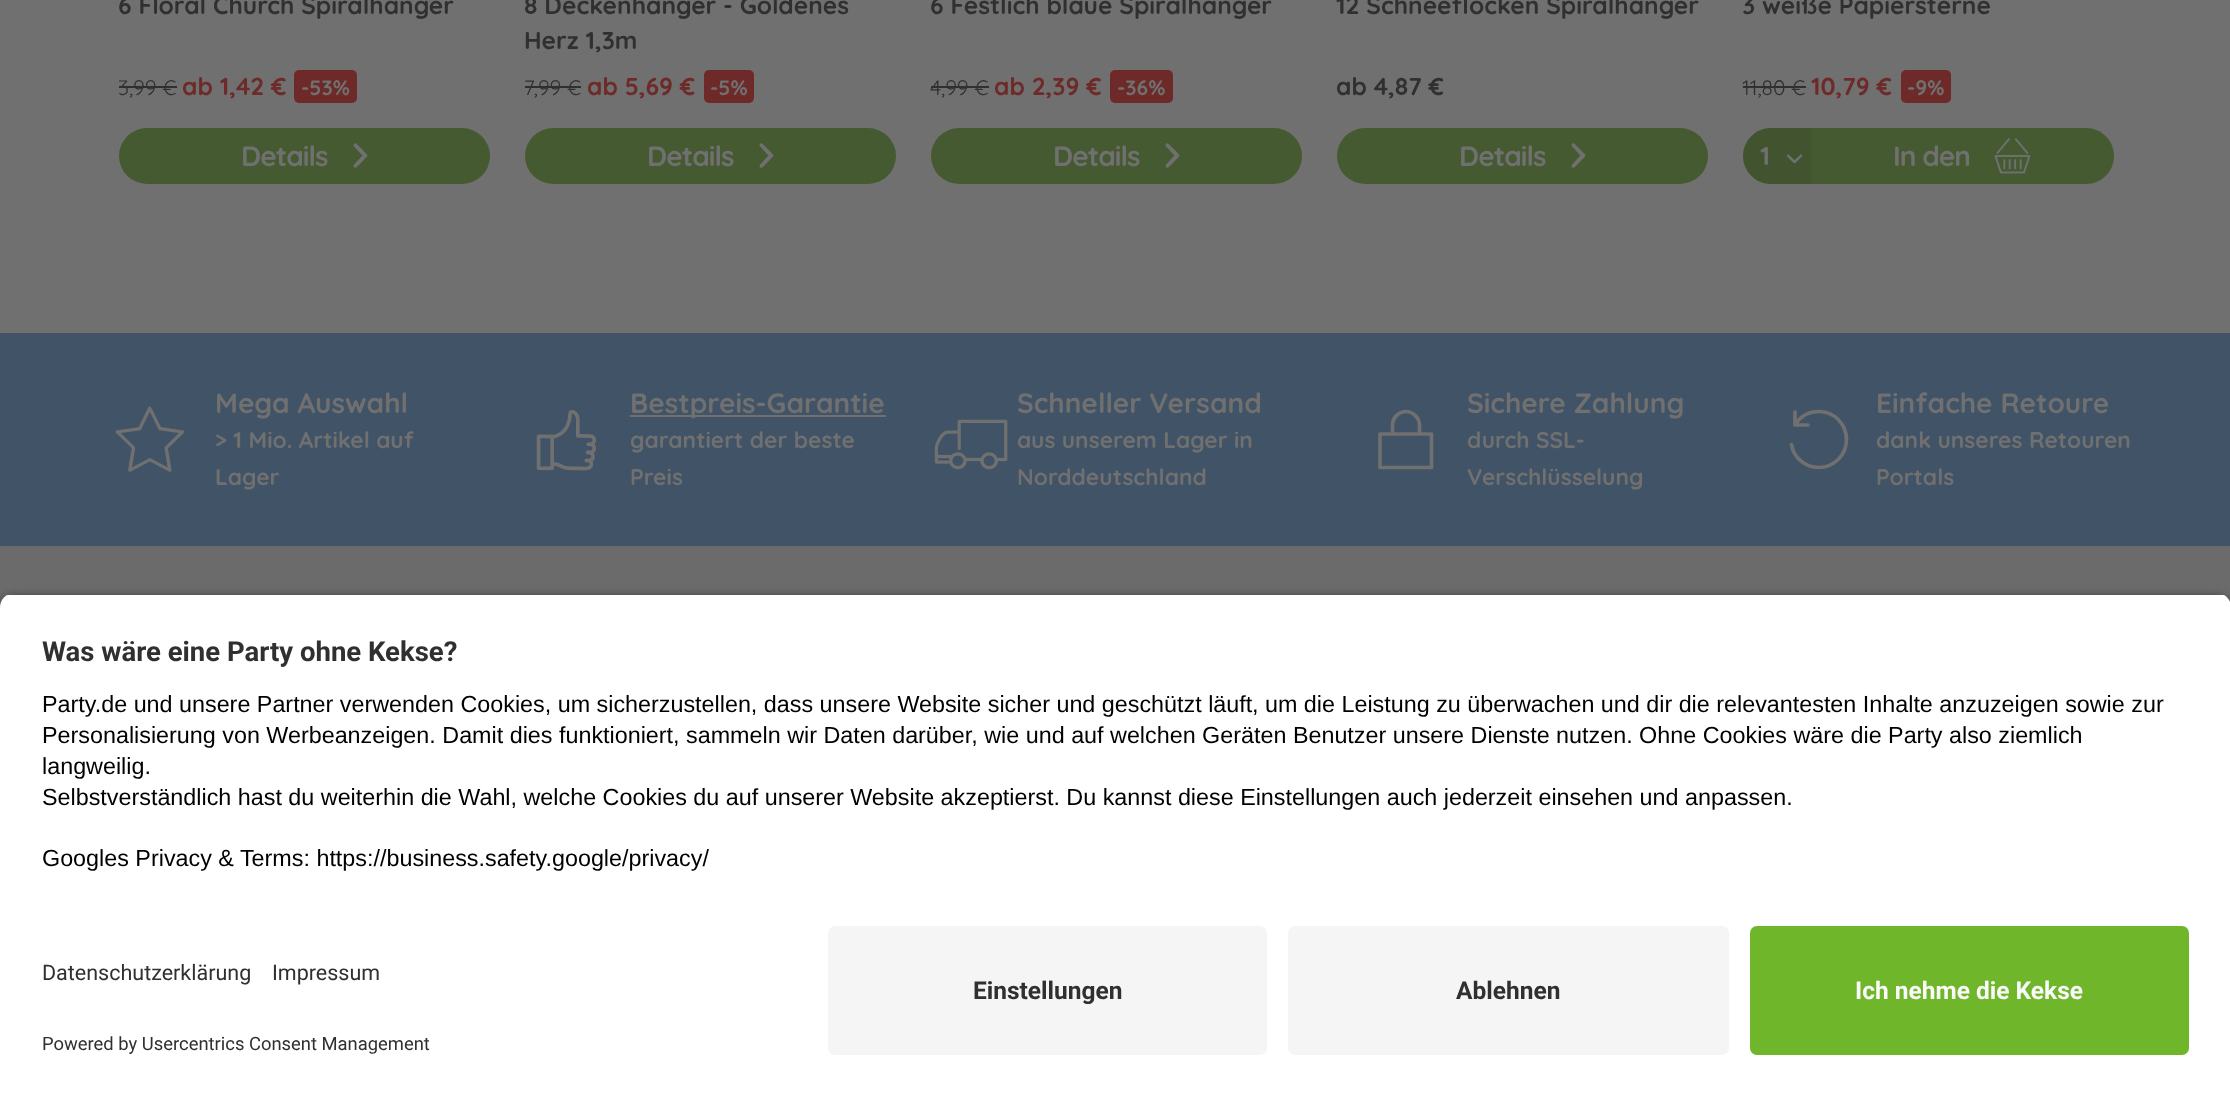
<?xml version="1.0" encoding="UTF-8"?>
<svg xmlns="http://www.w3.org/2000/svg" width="2230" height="1097">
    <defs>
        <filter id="blur1" x="-50%" y="-200%" width="200%" height="500%"><feGaussianBlur stdDeviation="6"/></filter>
        <clipPath id="clip1"><path d="M 14 593 H 2217 C 2224.5 593 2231 599.5 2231 607 V 912 H 0 V 607 C 0 599.5 6.5 593 14 593 Z"/></clipPath>
    </defs>
    <rect width="100%" height="100%" fill="#707070"/>
    <text x="118" y="14" font-family="Quicksand" font-size="24.5" font-weight="700" fill="#303030">6 Floral Church Spiralhänger</text>
    <text x="118" y="95" font-family="Quicksand" font-size="21" fill="#303030">3,99 €</text>
    <rect x="119" y="86" width="58" height="2" fill="#303030"/>
    <text x="182" y="95" font-family="Quicksand" font-size="24.5" font-weight="700" fill="#6D2A29">ab 1,42 €</text>
    <rect x="294" y="70" width="63" height="33" rx="5" fill="#6D2A29"/>
    <text x="301" y="95" font-family="Quicksand" font-size="21" font-weight="700" fill="#707070">-53%</text>
    <rect x="119" y="128" width="371" height="56" rx="28" fill="#455A31"/>
    <text x="241" y="166" font-family="Quicksand" font-size="28" font-weight="700" letter-spacing="-1" fill="#707070">Details</text>
    <image x="353" y="143" width="15" height="25" href="img_01.png"/>
    <text font-family="Quicksand" font-size="24.5" font-weight="700" fill="#303030">
        <tspan x="524" y="14">8 Deckenhänger - Goldenes</tspan>
        <tspan x="524" y="49">Herz 1,3m</tspan>
    </text>
    <text x="524" y="95" font-family="Quicksand" font-size="21" fill="#303030">7,99 €</text>
    <rect x="525" y="86" width="56" height="2" fill="#303030"/>
    <text x="587" y="95" font-family="Quicksand" font-size="24.5" font-weight="700" fill="#6D2A29">ab 5,69 €</text>
    <rect x="704" y="70" width="50" height="33" rx="5" fill="#6D2A29"/>
    <text x="710" y="95" font-family="Quicksand" font-size="21" font-weight="700" fill="#707070">-5%</text>
    <rect x="525" y="128" width="371" height="56" rx="28" fill="#455A31"/>
    <text x="647" y="166" font-family="Quicksand" font-size="28" font-weight="700" letter-spacing="-1" fill="#707070">Details</text>
    <image x="759" y="143" width="15" height="25" href="img_01.png"/>
    <text x="930" y="14" font-family="Quicksand" font-size="24.5" font-weight="700" fill="#303030">6 Festlich blaue Spiralhänger</text>
    <text x="930" y="95" font-family="Quicksand" font-size="21" fill="#303030">4,99 €</text>
    <rect x="931" y="86" width="58" height="2" fill="#303030"/>
    <text x="994" y="95" font-family="Quicksand" font-size="24.5" font-weight="700" fill="#6D2A29">ab 2,39 €</text>
    <rect x="1110" y="70" width="63" height="33" rx="5" fill="#6D2A29"/>
    <text x="1117" y="95" font-family="Quicksand" font-size="21" font-weight="700" fill="#707070">-36%</text>
    <rect x="931" y="128" width="371" height="56" rx="28" fill="#455A31"/>
    <text x="1053" y="166" font-family="Quicksand" font-size="28" font-weight="700" letter-spacing="-1" fill="#707070">Details</text>
    <image x="1165" y="143" width="15" height="25" href="img_01.png"/>
    <text x="1336" y="14" font-family="Quicksand" font-size="24.5" font-weight="700" fill="#303030">12 Schneeflocken Spiralhänger</text>
    <text x="1336" y="95" font-family="Quicksand" font-size="24.5" font-weight="700" fill="#303030">ab 4,87 €</text>
    <rect x="1337" y="128" width="371" height="56" rx="28" fill="#455A31"/>
    <text x="1459" y="166" font-family="Quicksand" font-size="28" font-weight="700" letter-spacing="-1" fill="#707070">Details</text>
    <image x="1571" y="143" width="15" height="25" href="img_01.png"/>
    <text x="1742" y="14" font-family="Quicksand" font-size="24.5" font-weight="700" fill="#303030">3 weiße Papiersterne</text>
    <text x="1742" y="95" font-family="Quicksand" font-size="21" fill="#303030">11,80 €</text>
    <rect x="1743" y="86" width="63" height="2" fill="#303030"/>
    <text x="1811" y="95" font-family="Quicksand" font-size="24.5" font-weight="700" fill="#6D2A29">10,79 €</text>
    <rect x="1901" y="70" width="50" height="33" rx="5" fill="#6D2A29"/>
    <text x="1907" y="95" font-family="Quicksand" font-size="21" font-weight="700" fill="#707070">-9%</text>
    <path d="M 1771 128 H 1811 V 184 H 1771 C 1755.5 184 1743 171.5 1743 156 C 1743 140.5 1755.5 128 1771 128 Z" fill="#41542F"/>
    <text x="1760" y="165" font-family="Quicksand" font-size="26" font-weight="700" fill="#707070">1</text>
    <image x="1786" y="154" width="17" height="10" href="img_02.png"/>
    <path d="M 1811 128 H 2086 C 2101.5 128 2114 140.5 2114 156 C 2114 171.5 2101.5 184 2086 184 H 1811 Z" fill="#455A31"/>
    <text x="1893" y="166" font-family="Quicksand" font-size="28" font-weight="700" letter-spacing="-1" fill="#707070">In den</text>
    <image x="1994" y="138" width="37" height="36" href="img_03.png"/>
    <rect x="0" y="546" width="2230" height="61" fill="#6B6B6B"/>
    <rect x="0" y="333" width="2230" height="213" fill="#405367"/>
    <image x="115" y="406" width="70" height="66" href="img_04.png"/>
    <text x="215" y="413" font-family="Quicksand" font-size="28" font-weight="700" fill="#707070">Mega Auswahl</text>
    <text font-family="Quicksand" font-size="22.75" font-weight="700" fill="#707070">
        <tspan x="215" y="448">&gt; 1 Mio. Artikel auf</tspan>
        <tspan x="215" y="485">Lager</tspan>
    </text>
    <image x="536" y="409" width="61" height="62" href="img_05.png"/>
    <rect x="630" y="415" width="256" height="2" fill="#707070"/>
    <text x="630" y="413" font-family="Quicksand" font-size="28" font-weight="700" fill="#707070">Bestpreis-Garantie</text>
    <text font-family="Quicksand" font-size="22.75" font-weight="700" fill="#707070">
        <tspan x="630" y="448">garantiert der beste</tspan>
        <tspan x="630" y="485">Preis</tspan>
    </text>
    <image x="934" y="419" width="74" height="51" href="img_06.png"/>
    <text x="1017" y="413" font-family="Quicksand" font-size="28" font-weight="700" fill="#707070">Schneller Versand</text>
    <text font-family="Quicksand" font-size="22.75" font-weight="700" fill="#707070">
        <tspan x="1017" y="448">aus unserem Lager in</tspan>
        <tspan x="1017" y="485">Norddeutschland</tspan>
    </text>
    <path d="M 1431.5 434 H 1380 V 467.5 H 1431.5 Z M 1392.5 434 V 425 C 1392.5 418 1398.5 411.5 1406 411.5 C 1413 411.5 1419.5 418 1419.5 425 V 434" fill="none" stroke="#707070" stroke-width="3.7" stroke-linejoin="round"/>
    <text x="1467" y="413" font-family="Quicksand" font-size="28" font-weight="700" fill="#707070">Sichere Zahlung</text>
    <text font-family="Quicksand" font-size="22.75" font-weight="700" fill="#707070">
        <tspan x="1467" y="448">durch SSL-</tspan>
        <tspan x="1467" y="485">Verschlüsselung</tspan>
    </text>
    <path d="M 1795 425 H 1808 M 1795 412 V 425 M 1796 423.5 C 1801 416 1809.5 411.5 1819 411.5 C 1834 411.5 1846.5 424 1846.5 439.5 C 1846.5 455 1834 467.5 1819 467.5 C 1805 467.5 1793.5 457.5 1791.5 444.5" fill="none" stroke="#707070" stroke-width="3.7" stroke-linecap="round" stroke-linejoin="round"/>
    <text x="1876" y="413" font-family="Quicksand" font-size="28" font-weight="700" fill="#707070">Einfache Retoure</text>
    <text font-family="Quicksand" font-size="22.75" font-weight="700" fill="#707070">
        <tspan x="1876" y="448">dank unseres Retouren</tspan>
        <tspan x="1876" y="485">Portals</tspan>
    </text>
    <rect x="0" y="599" width="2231" height="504" rx="14" fill="#000000" fill-opacity="0.8" filter="url(#blur1)"/>
    <g clip-path="url(#clip1)">
        <rect x="0" y="595" width="2230" height="317" fill="#FFFFFF"/>
    </g>
    <text x="42" y="661" font-family="Roboto" font-size="27.5" font-weight="700" fill="#303030">Was wäre eine Party ohne Kekse?</text>
    <text x="42" y="712" font-family="Liberation Sans" font-size="23.33" fill="#000000">Party.de und unsere Partner verwenden Cookies, um sicherzustellen, dass unsere Website sicher und geschützt läuft</text>
    <text x="1252" y="712" font-family="Liberation Sans" font-size="23.33" fill="#000000">, um die Leistung zu überwachen und dir die relevantesten Inhalte anzuzeigen sowie zur</text>
    <text font-family="Liberation Sans" font-size="23.33" fill="#000000">
        <tspan x="42" y="743">Personalisierung von Werbeanzeigen. Damit dies funktioniert, sammeln wir Daten darüber, wie und auf welchen Geräten Benutzer unsere Dienste nutzen. Ohne Cookies wäre die Party also ziemlich</tspan>
        <tspan x="42" y="774">langweilig.</tspan>
        <tspan x="42" y="805">Selbstverständlich hast du weiterhin die Wahl, welche Cookies du auf unserer Website akzeptierst. Du kannst diese Einstellungen auch jederzeit einsehen und anpassen.</tspan>
    </text>
    <text x="42" y="866" font-family="Liberation Sans" font-size="23.33" fill="#000000">Googles Privacy &amp; Terms: https://business.safety.google/privacy/</text>
    <rect x="0" y="912" width="2230" height="185" fill="#FFFFFF"/>
    <text x="42" y="980" font-family="Roboto" font-size="21.5" fill="#303030">Datenschutzerklärung</text>
    <text x="272" y="980" font-family="Roboto" font-size="21.5" fill="#303030">Impressum</text>
    <text x="42" y="1050" font-family="Roboto" font-size="18.4" fill="#303030">Powered by Usercentrics Consent Management</text>
    <rect x="828" y="926" width="439" height="129" rx="7" fill="#F5F5F5"/>
    <text x="973" y="999" font-family="Roboto" font-size="24.5" font-weight="700" fill="#303030">Einstellungen</text>
    <rect x="1288" y="926" width="441" height="129" rx="7" fill="#F5F5F5"/>
    <text x="1456" y="999" font-family="Roboto" font-size="24.5" font-weight="700" fill="#303030">Ablehnen</text>
    <rect x="1750" y="926" width="439" height="129" rx="7" fill="#6FB62B"/>
    <text x="1855" y="999" font-family="Roboto" font-size="24.5" font-weight="700" fill="#FAFAFA">Ich nehme die Kekse</text>
</svg>
